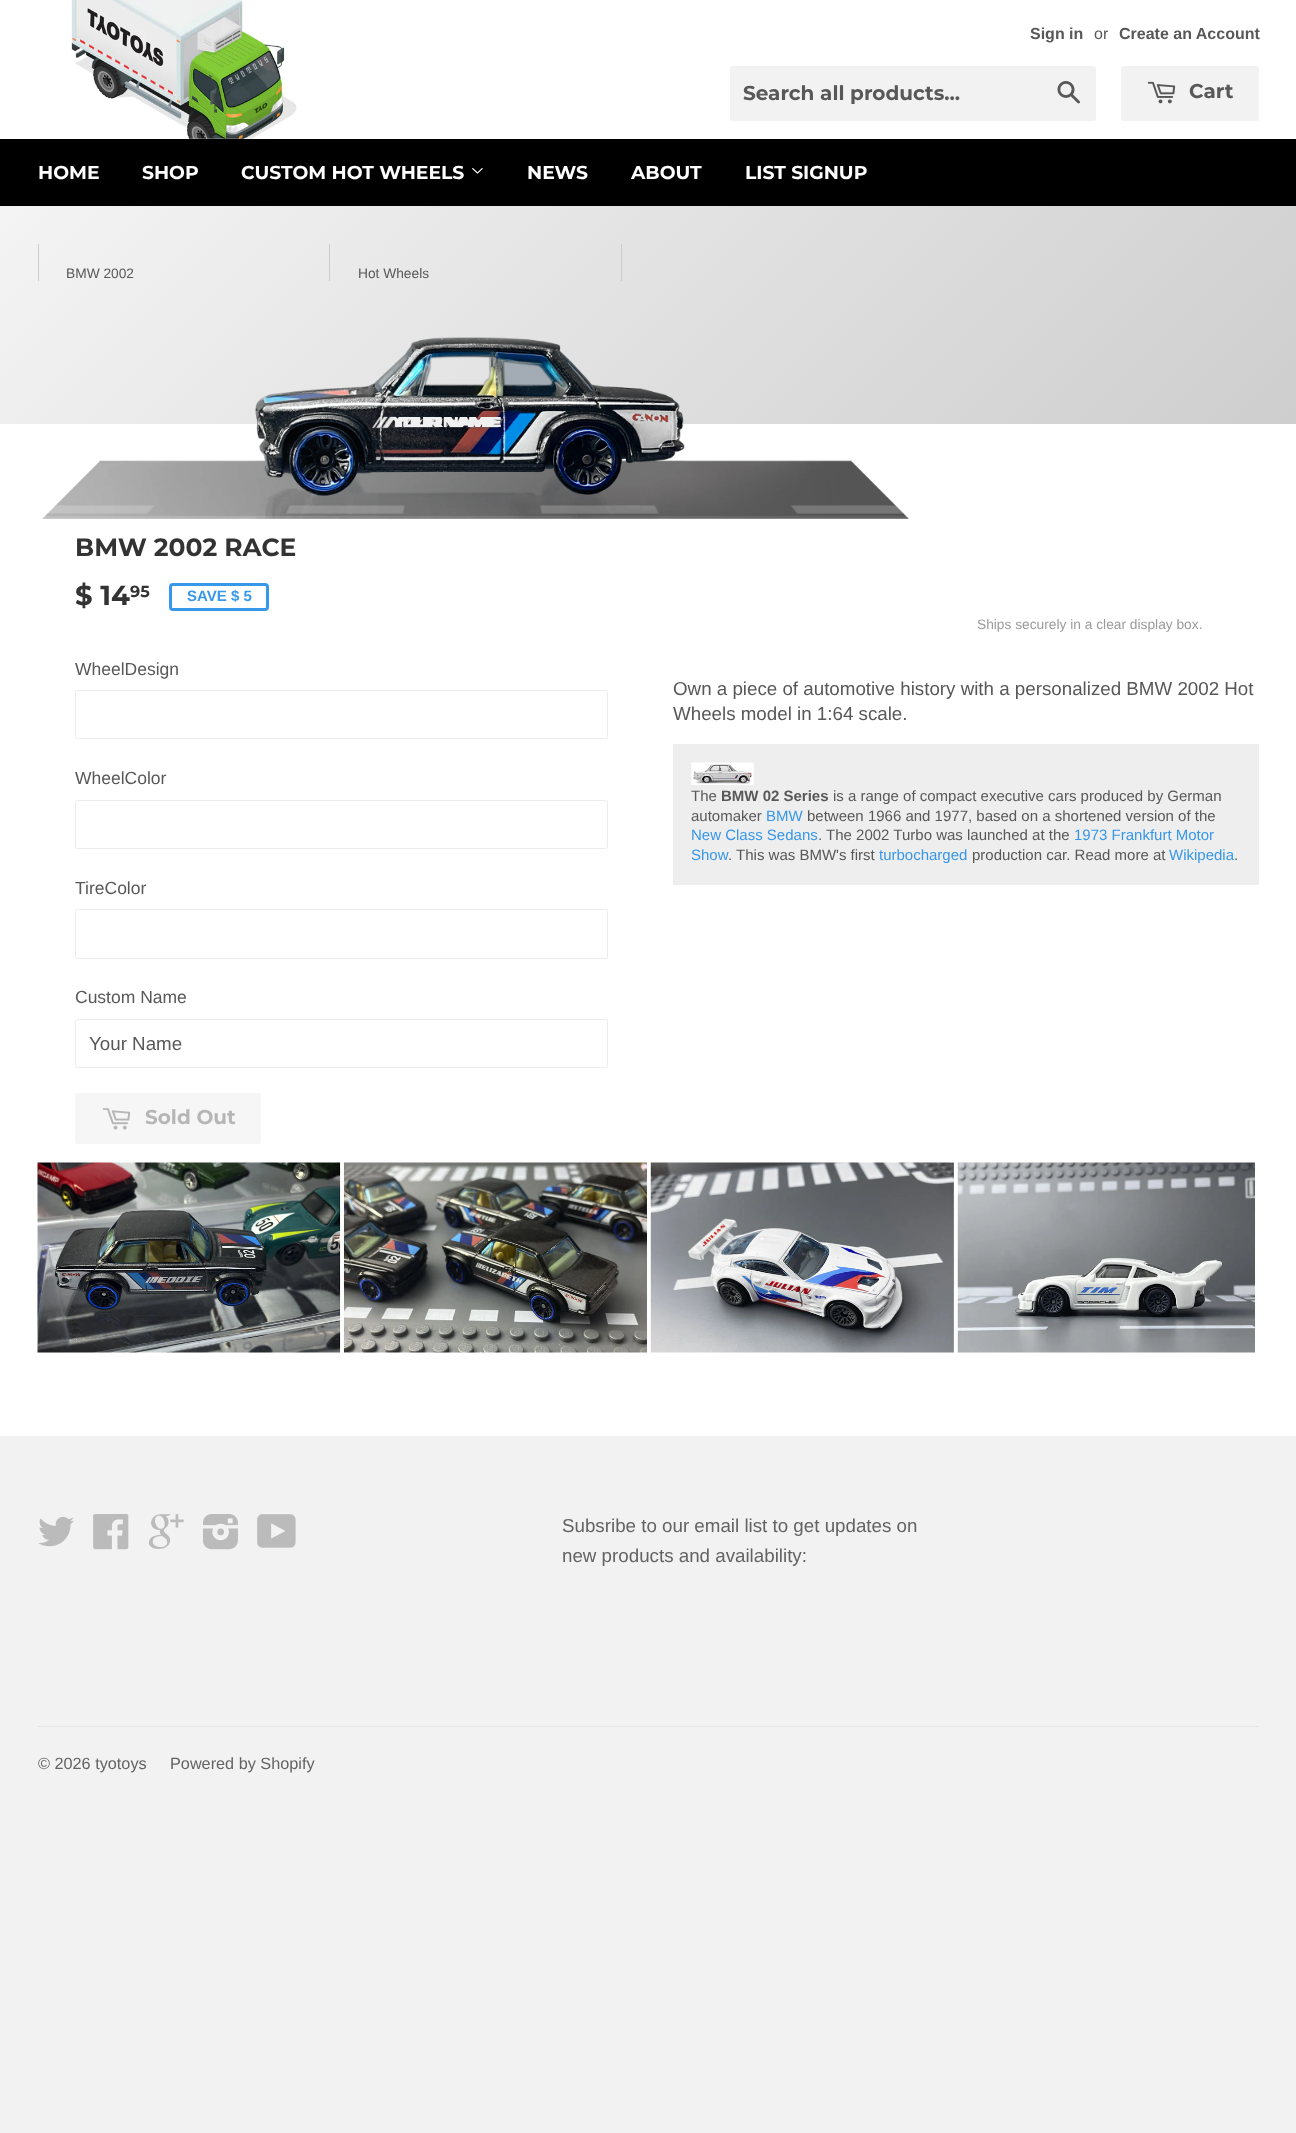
<?xml version="1.0" encoding="UTF-8"?>
<svg xmlns="http://www.w3.org/2000/svg" width="1296" height="2133">
    <defs>
        <linearGradient id="g1" gradientUnits="userSpaceOnUse" x1="270" y1="-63" x2="1027" y2="693"><stop offset="0" stop-color="#F4F4F4"/><stop offset="1" stop-color="#CECECE"/></linearGradient>
    </defs>
    <rect width="100%" height="100%" fill="#F2F2F2"/>
    <rect x="0" y="0" width="1296" height="1436" fill="#FFFFFF"/>
    <image x="71" y="0" width="226" height="139" href="img_01.png"/>
    <text x="1030" y="39" font-family="Liberation Sans" font-size="16" font-weight="700" fill="#585858">Sign in</text>
    <text x="1094" y="39" font-family="Liberation Sans" font-size="16" fill="#585858">or</text>
    <text x="1119" y="39" font-family="Liberation Sans" font-size="16" font-weight="700" fill="#585858">Create an Account</text>
    <rect x="730" y="66" width="366" height="55" rx="2.5" fill="#F2F2F2"/>
    <text x="743" y="100" font-family="Montserrat" font-size="20" font-weight="100" fill="#585858">Search all products...</text>
    <image x="1057" y="81" width="23" height="23" href="img_02.png"/>
    <rect x="1121" y="66" width="138" height="55" rx="2.5" fill="#F2F2F2"/>
    <image x="1147" y="81" width="29" height="23" href="img_03.png"/>
    <text x="1189" y="98" font-family="Montserrat" font-size="20" font-weight="100" fill="#585858">Cart</text>
    <rect x="0" y="139" width="1296" height="67" fill="#000000"/>
    <text x="38" y="179" font-family="Montserrat" font-size="18.75" font-weight="100" fill="#FFFFFF">HOME</text>
    <text x="142" y="179" font-family="Montserrat" font-size="18.75" font-weight="100" fill="#FFFFFF">SHOP</text>
    <text x="241" y="179" font-family="Montserrat" font-size="18.75" font-weight="100" fill="#FFFFFF">CUSTOM HOT WHEELS</text>
    <image x="472" y="167" width="11" height="7" href="img_04.png"/>
    <text x="527" y="179" font-family="Montserrat" font-size="18.75" font-weight="100" fill="#FFFFFF">NEWS</text>
    <text x="631" y="179" font-family="Montserrat" font-size="18.75" font-weight="100" fill="#FFFFFF">ABOUT</text>
    <text x="745" y="179" font-family="Montserrat" font-size="18.75" font-weight="100" fill="#FFFFFF">LIST SIGNUP</text>
    <rect x="0" y="206" width="1296" height="218" fill="url(#g1)"/>
    <rect x="38" y="244" width="1" height="37" fill="#CCCCCC"/>
    <text x="66" y="278" font-family="Liberation Sans" font-size="13.75" fill="#585858">BMW 2002</text>
    <rect x="329" y="244" width="1" height="37" fill="#CCCCCC"/>
    <text x="358" y="278" font-family="Liberation Sans" font-size="13.75" fill="#585858">Hot Wheels</text>
    <rect x="621" y="244" width="1" height="37" fill="#CCCCCC"/>
    <image x="37" y="337" width="872" height="182" href="img_05.png"/>
    <image x="371" y="416" width="134" height="13" href="img_06.png"/>
    <text x="391" y="427" font-family="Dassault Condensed" font-size="25.5" font-weight="700" letter-spacing="-2.75" fill="#F1F0F1">YOUR NAME</text>
    <image x="48" y="505" width="856" height="9" href="img_07.png"/>
    <text x="75" y="556" font-family="Montserrat" font-size="25" font-weight="100" fill="#333333">BMW 2002 RACE</text>
    <text x="75" y="605" font-family="Montserrat" font-size="27.5" font-weight="100" fill="#333333">$ 14</text>
    <text x="130" y="597" font-family="Montserrat" font-size="16" font-weight="100" fill="#333333">95</text>
    <rect x="170.5" y="584.5" width="97" height="25" rx="2.5" fill="none" stroke="#3797E9" stroke-width="3"/>
    <text x="187" y="601" font-family="Liberation Sans" font-size="15" font-weight="700" fill="#3797E9">SAVE $ 5</text>
    <text x="75" y="675" font-family="Liberation Sans" font-size="17.5" fill="#585858">WheelDesign</text>
    <rect x="75.5" y="690.5" width="532" height="48" rx="2" fill="none" stroke="#ECECEC"/>
    <text x="75" y="784" font-family="Liberation Sans" font-size="17.5" fill="#585858">WheelColor</text>
    <rect x="75.5" y="800.5" width="532" height="48" rx="2" fill="none" stroke="#ECECEC"/>
    <text x="75" y="894" font-family="Liberation Sans" font-size="17.5" fill="#585858">TireColor</text>
    <rect x="75.5" y="909.5" width="532" height="49" rx="2" fill="none" stroke="#ECECEC"/>
    <text x="75" y="1003" font-family="Liberation Sans" font-size="17.5" fill="#585858">Custom Name</text>
    <rect x="75.5" y="1019.5" width="532" height="48" rx="2" fill="none" stroke="#ECECEC"/>
    <text x="89" y="1050" font-family="Liberation Sans" font-size="18.75" fill="#585858">Your Name</text>
    <rect x="75" y="1093" width="186" height="51" rx="2.5" fill="#F6F6F6"/>
    <image x="102" y="1108" width="29" height="22" href="img_08.png"/>
    <text x="145" y="1124" font-family="Montserrat" font-size="20" font-weight="100" fill="#B6B6B6">Sold Out</text>
    <text x="977" y="629" font-family="Liberation Sans" font-size="13.75" fill="#9B9B9B">Ships securely in a clear display box.</text>
    <text font-family="Liberation Sans" font-size="18.75" fill="#585858">
        <tspan x="673" y="695">Own a piece of automotive history with a personalized BMW 2002 Hot</tspan>
        <tspan x="673" y="720">Wheels model in 1:64 scale.</tspan>
    </text>
    <rect x="673" y="744" width="586" height="141" fill="#EEEEEE"/>
    <image x="691" y="762" width="63" height="23" href="img_09.png"/>
    <text x="691" y="801" font-family="Liberation Sans" font-size="15" fill="#585858">The</text>
    <text x="721" y="801" font-family="Liberation Sans" font-size="15" font-weight="700" fill="#585858">BMW 02 Series</text>
    <text x="833" y="801" font-family="Liberation Sans" font-size="15" fill="#585858">is a range of compact executive cars produced by German</text>
    <text x="691" y="821" font-family="Liberation Sans" font-size="15" fill="#585858">automaker</text>
    <text x="766" y="821" font-family="Liberation Sans" font-size="15" fill="#3797E9">BMW</text>
    <text x="807" y="821" font-family="Liberation Sans" font-size="15" fill="#585858">between 1966 and 1977, based on a shortened version of the</text>
    <text x="691" y="840" font-family="Liberation Sans" font-size="15" fill="#3797E9">New Class Sedans</text>
    <text x="818" y="840" font-family="Liberation Sans" font-size="15" fill="#585858">. The 2002 Turbo was launched at the</text>
    <text x="1074" y="840" font-family="Liberation Sans" font-size="15" fill="#3797E9">1973 Frankfurt Motor</text>
    <text x="691" y="860" font-family="Liberation Sans" font-size="15" fill="#3797E9">Show</text>
    <text x="728" y="860" font-family="Liberation Sans" font-size="15" fill="#585858">. This was BMW's first</text>
    <text x="879" y="860" font-family="Liberation Sans" font-size="15" fill="#3797E9">turbocharged</text>
    <text x="972" y="860" font-family="Liberation Sans" font-size="15" fill="#585858">production car. Read more at</text>
    <text x="1169" y="860" font-family="Liberation Sans" font-size="15" fill="#3797E9">Wikipedia</text>
    <text x="1234" y="860" font-family="Liberation Sans" font-size="15" fill="#585858">.</text>
    <image x="37" y="1162" width="1220" height="191" href="img_10.png"/>
    <image x="38" y="1516" width="36" height="31" href="img_11.png"/>
    <image x="93" y="1514" width="36" height="36" href="img_12.png"/>
    <image x="148" y="1514" width="36" height="35" href="img_13.png"/>
    <image x="203" y="1514" width="35" height="36" href="img_14.png"/>
    <image x="257" y="1514" width="39" height="34" href="img_15.png"/>
    <text font-family="Liberation Sans" font-size="18.75" fill="#636363">
        <tspan x="562" y="1532">Subsribe to our email list to get updates on</tspan>
        <tspan x="562" y="1562">new products and availability:</tspan>
    </text>
    <rect x="38" y="1726" width="1221" height="1" fill="#E5E5E5"/>
    <text x="38" y="1769" font-family="Liberation Sans" font-size="16.25" fill="#636363">© 2026 tyotoys</text>
    <text x="170" y="1769" font-family="Liberation Sans" font-size="16.25" fill="#636363">Powered by Shopify</text>
</svg>
